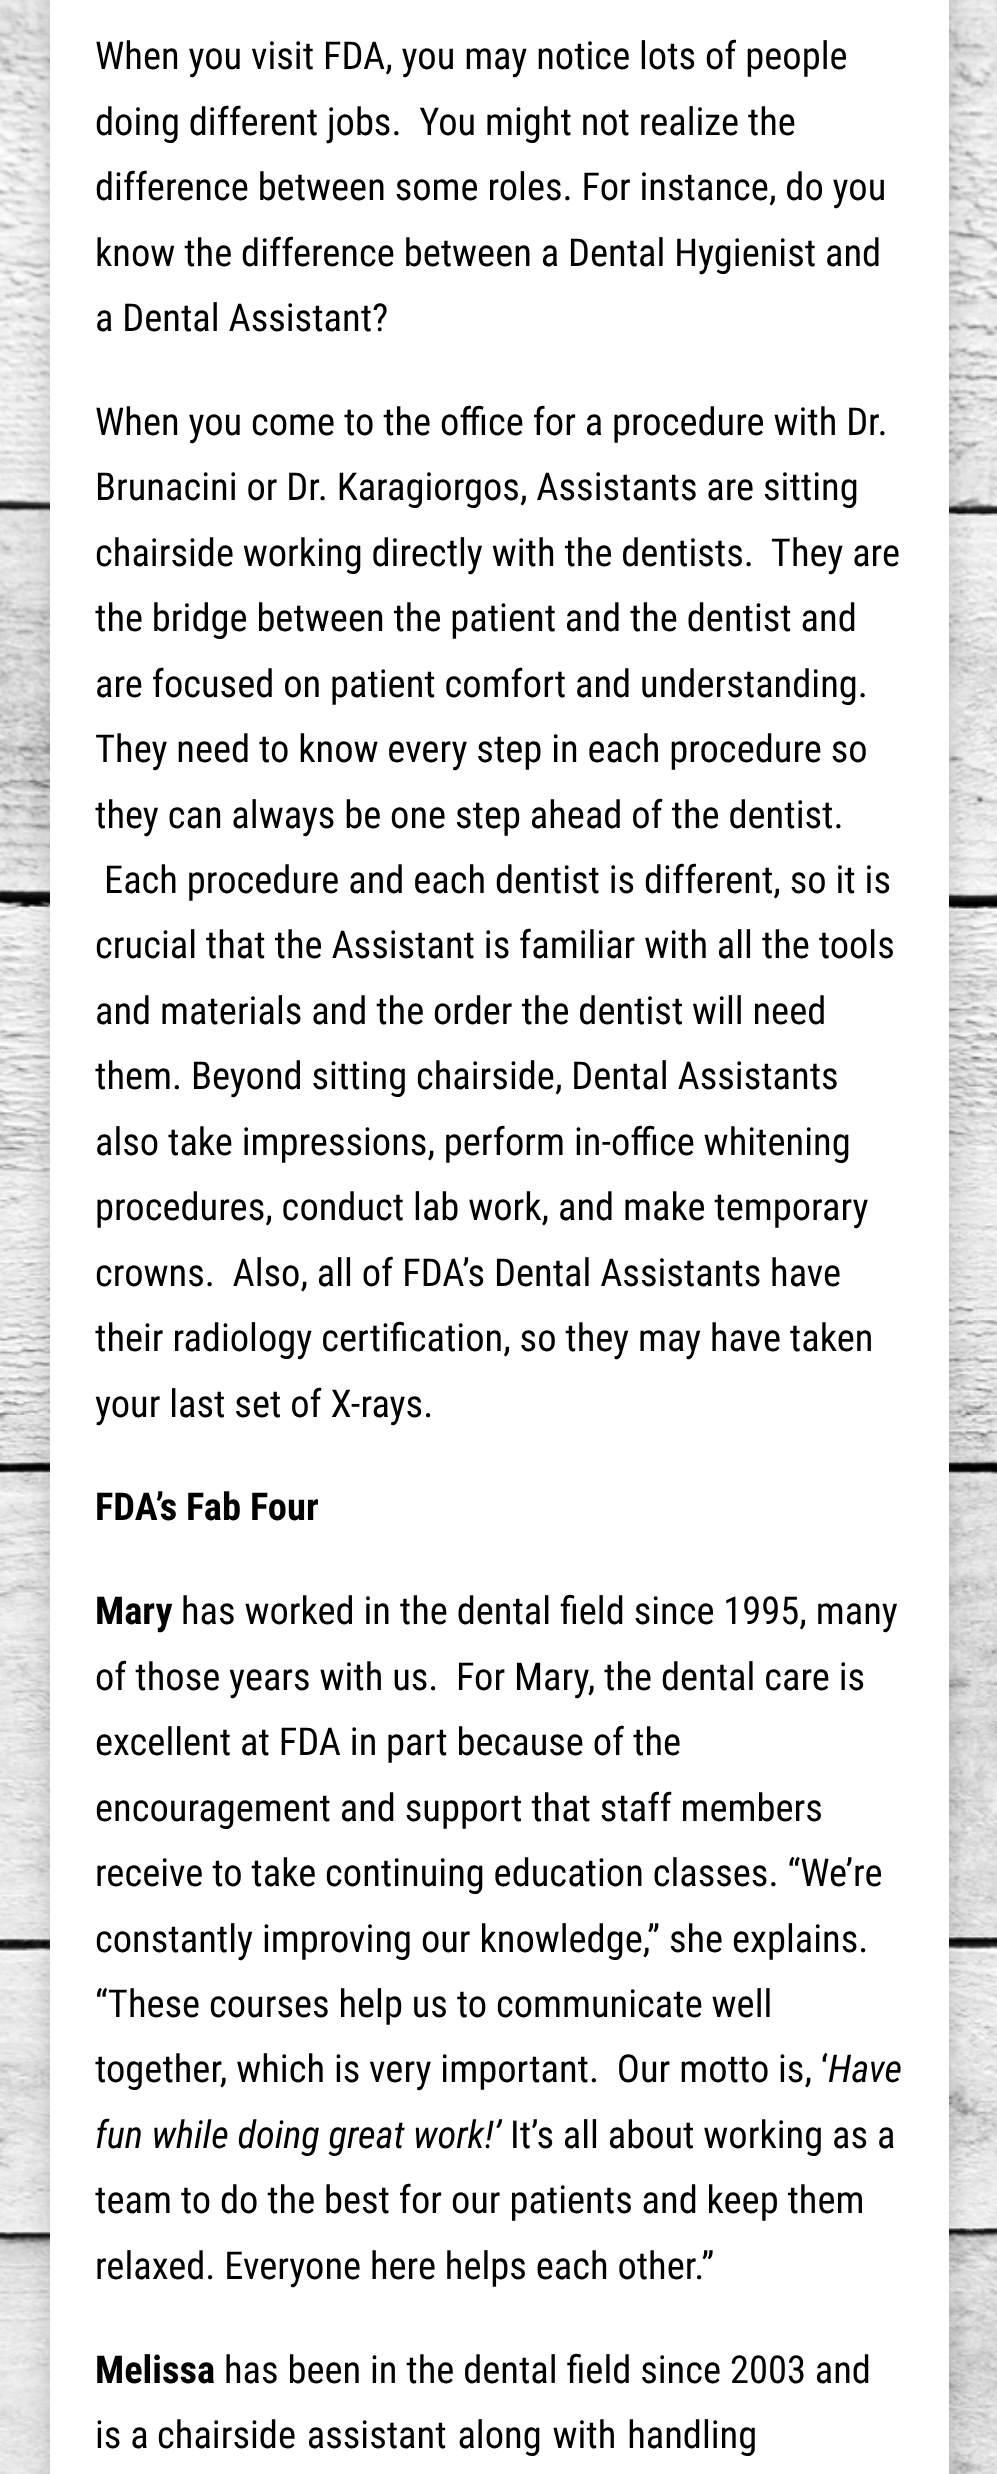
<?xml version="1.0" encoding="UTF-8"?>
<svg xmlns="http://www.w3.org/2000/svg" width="997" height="2474">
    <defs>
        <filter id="blur1" x="-50%" y="-200%" width="200%" height="500%"><feGaussianBlur stdDeviation="14"/></filter>
    </defs>
    <rect width="100%" height="100%" fill="#FFFFFF"/>
    <image x="0" y="0" width="997" height="2474" href="img_01.png"/>
    <rect x="50" y="-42" width="899" height="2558" fill="#000000" fill-opacity="0.2" filter="url(#blur1)"/>
    <rect x="50" y="0" width="899" height="2474" fill="#FFFFFF"/>
    <text font-family="Roboto Condensed" font-size="38.5" fill="#000000" xml:space="preserve"><tspan x="95" y="69">When you visit FDA, you may notice lots of people</tspan><tspan x="95" y="135">doing different jobs.  You might not realize the</tspan><tspan x="95" y="200">difference between some roles. For instance, do you</tspan><tspan x="95" y="266">know the difference between a Dental Hygienist and</tspan><tspan x="95" y="331">a Dental Assistant?</tspan></text>
    <text font-family="Roboto Condensed" font-size="38.5" fill="#000000" xml:space="preserve"><tspan x="95" y="435">When you come to the office for a procedure with Dr.</tspan><tspan x="95" y="500">Brunacini or Dr. Karagiorgos, Assistants are sitting</tspan><tspan x="95" y="566">chairside working directly with the dentists.  They are</tspan><tspan x="95" y="631">the bridge between the patient and the dentist and</tspan><tspan x="95" y="697">are focused on patient comfort and understanding.</tspan><tspan x="95" y="762">They need to know every step in each procedure so</tspan><tspan x="95" y="828">they can always be one step ahead of the dentist.</tspan></text>
    <text x="104" y="893" font-family="Roboto Condensed" font-size="38.5" fill="#000000">Each procedure and each dentist is different, so it is</text>
    <text font-family="Roboto Condensed" font-size="38.5" fill="#000000" xml:space="preserve"><tspan x="95" y="958">crucial that the Assistant is familiar with all the tools</tspan><tspan x="95" y="1024">and materials and the order the dentist will need</tspan><tspan x="95" y="1089">them. Beyond sitting chairside, Dental Assistants</tspan><tspan x="95" y="1155">also take impressions, perform in-office whitening</tspan><tspan x="95" y="1220">procedures, conduct lab work, and make temporary</tspan><tspan x="95" y="1286">crowns.  Also, all of FDA’s Dental Assistants have</tspan><tspan x="95" y="1351">their radiology certification, so they may have taken</tspan><tspan x="95" y="1417">your last set of X-rays.</tspan></text>
    <text x="95" y="1520" font-family="Roboto Condensed" font-size="38.5" font-weight="700" fill="#000000">FDA’s Fab Four</text>
    <text x="95" y="1624" font-family="Roboto Condensed" font-size="38.5" font-weight="700" fill="#000000">Mary</text>
    <text x="181" y="1624" font-family="Roboto Condensed" font-size="38.5" fill="#000000">has worked in the dental field since 1995, many</text>
    <text x="95" y="1690" font-family="Roboto Condensed" font-size="38.5" fill="#000000">of those years with us.</text>
    <text x="456" y="1690" font-family="Roboto Condensed" font-size="38.5" fill="#000000">For Mary, the dental care is</text>
    <text font-family="Roboto Condensed" font-size="38.5" fill="#000000" xml:space="preserve"><tspan x="95" y="1755">excellent at FDA in part because of the</tspan><tspan x="95" y="1821">encouragement and support that staff members</tspan><tspan x="95" y="1886">receive to take continuing education classes. “We’re</tspan><tspan x="95" y="1952">constantly improving our knowledge,” she explains.</tspan><tspan x="95" y="2017">“These courses help us to communicate well</tspan><tspan x="95" y="2082">together, which is very important.  Our motto is, ‘</tspan></text>
    <text x="828" y="2082" font-family="Roboto Condensed" font-size="38.5" font-style="italic" fill="#000000">Have</text>
    <text x="95" y="2148" font-family="Roboto Condensed" font-size="38.5" font-style="italic" fill="#000000">fun while doing great work!’</text>
    <text x="510" y="2148" font-family="Roboto Condensed" font-size="38.5" fill="#000000">It’s all about working as a</text>
    <text font-family="Roboto Condensed" font-size="38.5" fill="#000000">
        <tspan x="95" y="2213">team to do the best for our patients and keep them</tspan>
        <tspan x="95" y="2279">relaxed. Everyone here helps each other.”</tspan>
    </text>
    <text x="95" y="2383" font-family="Roboto Condensed" font-size="38.5" font-weight="700" fill="#000000">Melissa</text>
    <text x="224" y="2383" font-family="Roboto Condensed" font-size="38.5" fill="#000000">has been in the dental field since 2003 and</text>
    <text x="95" y="2448" font-family="Roboto Condensed" font-size="38.5" fill="#000000">is a</text>
    <text x="157" y="2448" word-spacing="2" font-family="Roboto Condensed" font-size="38.5" fill="#000000">chairside assistant along with handling</text>
</svg>
